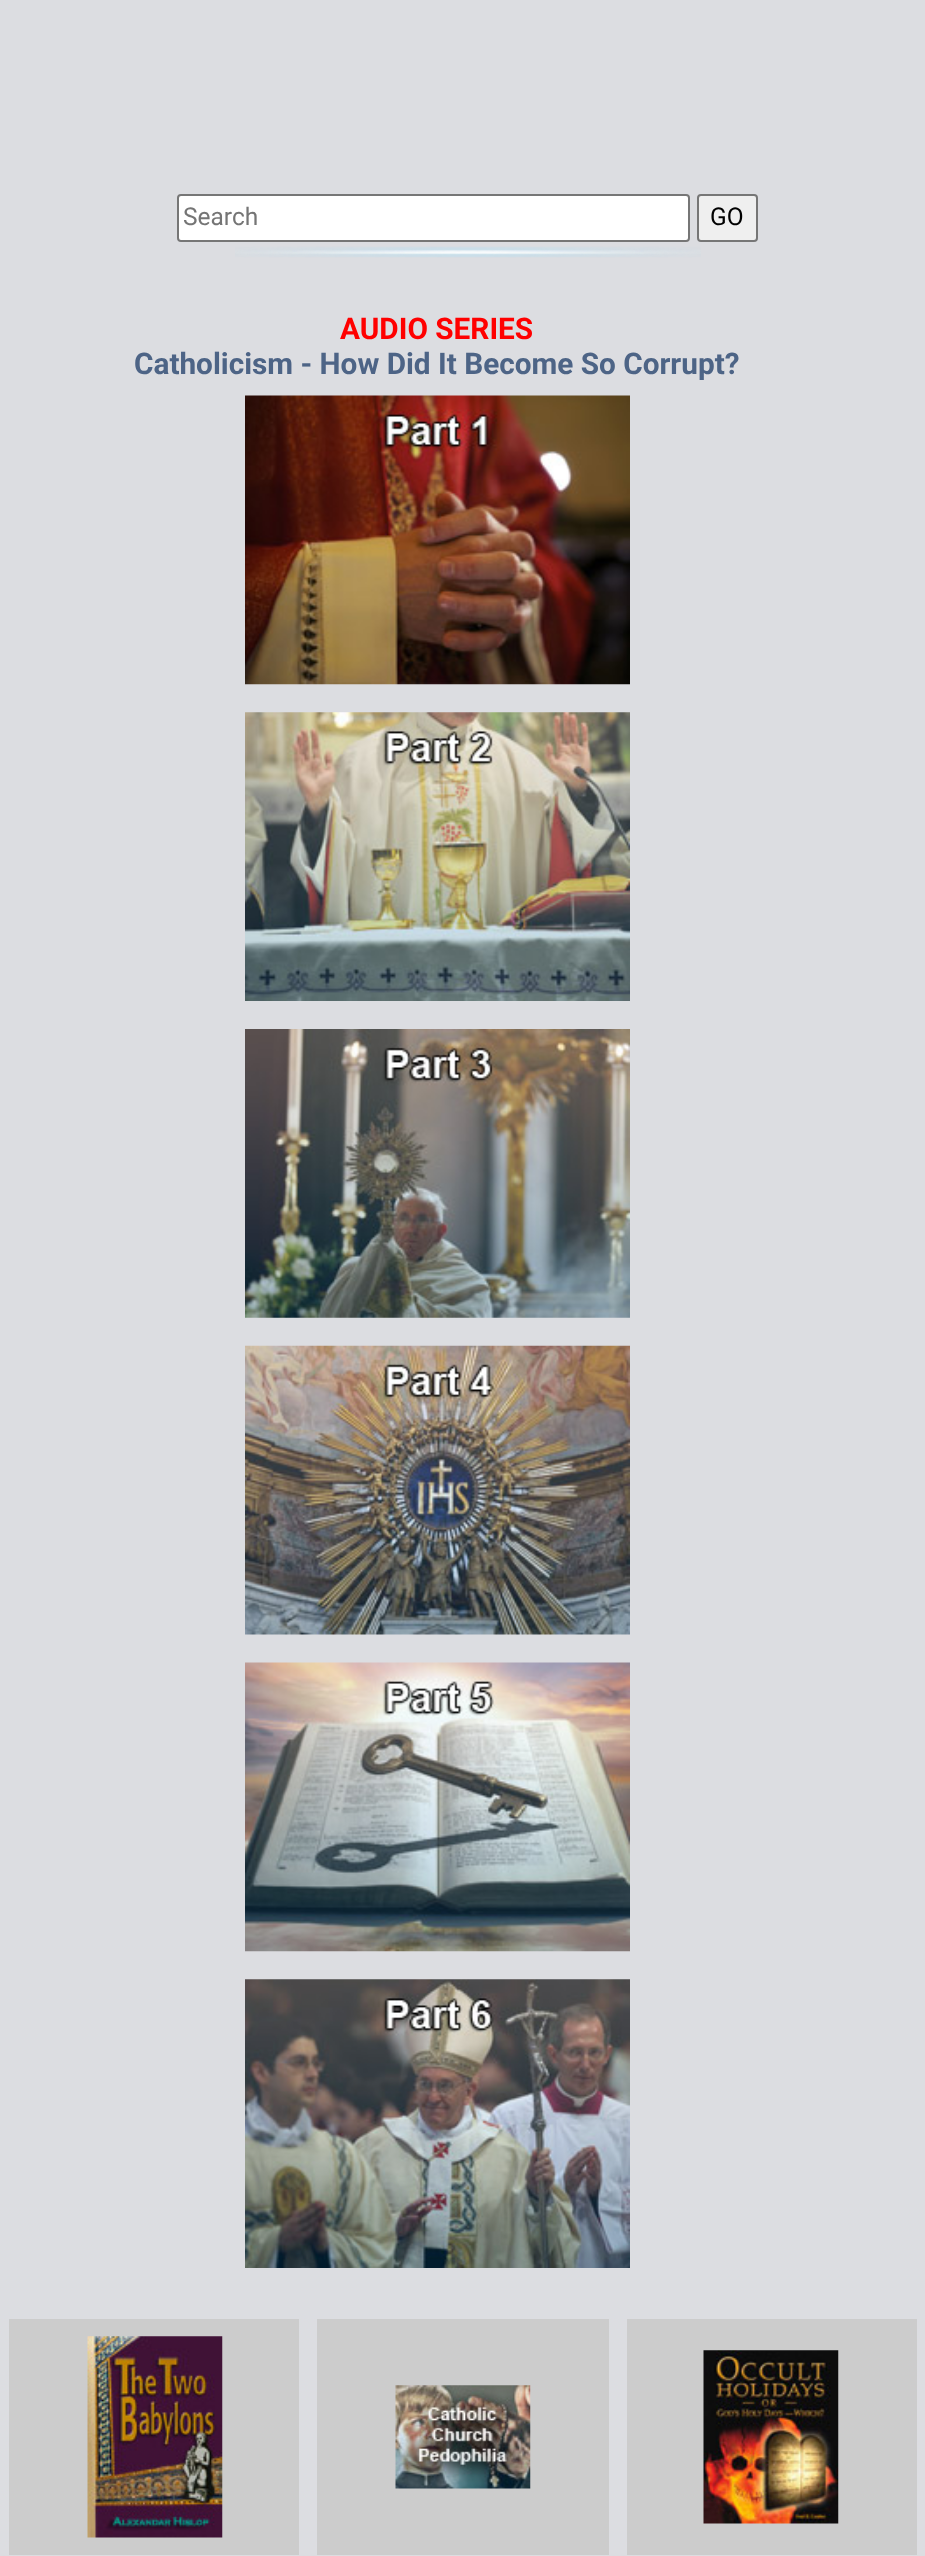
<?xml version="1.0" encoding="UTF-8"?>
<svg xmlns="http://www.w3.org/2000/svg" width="925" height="2556">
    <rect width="100%" height="100%" fill="#DCDDE1"/>
    <rect x="178" y="195" width="511" height="46" rx="3" fill="#FFFFFF" stroke="#767676" stroke-width="2"/>
    <text x="183" y="225" font-family="Roboto" font-size="24.5" fill="#757575">Search</text>
    <rect x="698" y="195" width="59" height="46" rx="3" fill="#EFEFEF" stroke="#767676" stroke-width="2"/>
    <text x="710" y="225" font-family="Roboto" font-size="24.5" fill="#000000">GO</text>
    <image x="235" y="246" width="466" height="12" href="img_01.png"/>
    <text x="340" y="339" font-family="Roboto" font-size="29.75" font-weight="700" fill="#FF0000">AUDIO SERIES</text>
    <text x="134" y="374" font-family="Roboto" font-size="29.75" font-weight="700" fill="#4D6486">Catholicism - How Did It Become So Corrupt?</text>
    <image x="245" y="395" width="385" height="290" href="img_02.png"/>
    <image x="245" y="712" width="385" height="289" href="img_03.png"/>
    <image x="245" y="1029" width="385" height="289" href="img_04.png"/>
    <image x="245" y="1345" width="385" height="290" href="img_05.png"/>
    <image x="245" y="1662" width="385" height="290" href="img_06.png"/>
    <image x="245" y="1979" width="385" height="289" href="img_07.png"/>
    <rect x="9" y="2319" width="290" height="236" fill="#CCCCCC"/>
    <image x="87" y="2336" width="136" height="202" href="img_08.png"/>
    <rect x="317" y="2319" width="292" height="236" fill="#CCCCCC"/>
    <image x="395" y="2385" width="136" height="104" href="img_09.png"/>
    <rect x="627" y="2319" width="290" height="236" fill="#CCCCCC"/>
    <image x="703" y="2350" width="136" height="174" href="img_10.png"/>
</svg>
